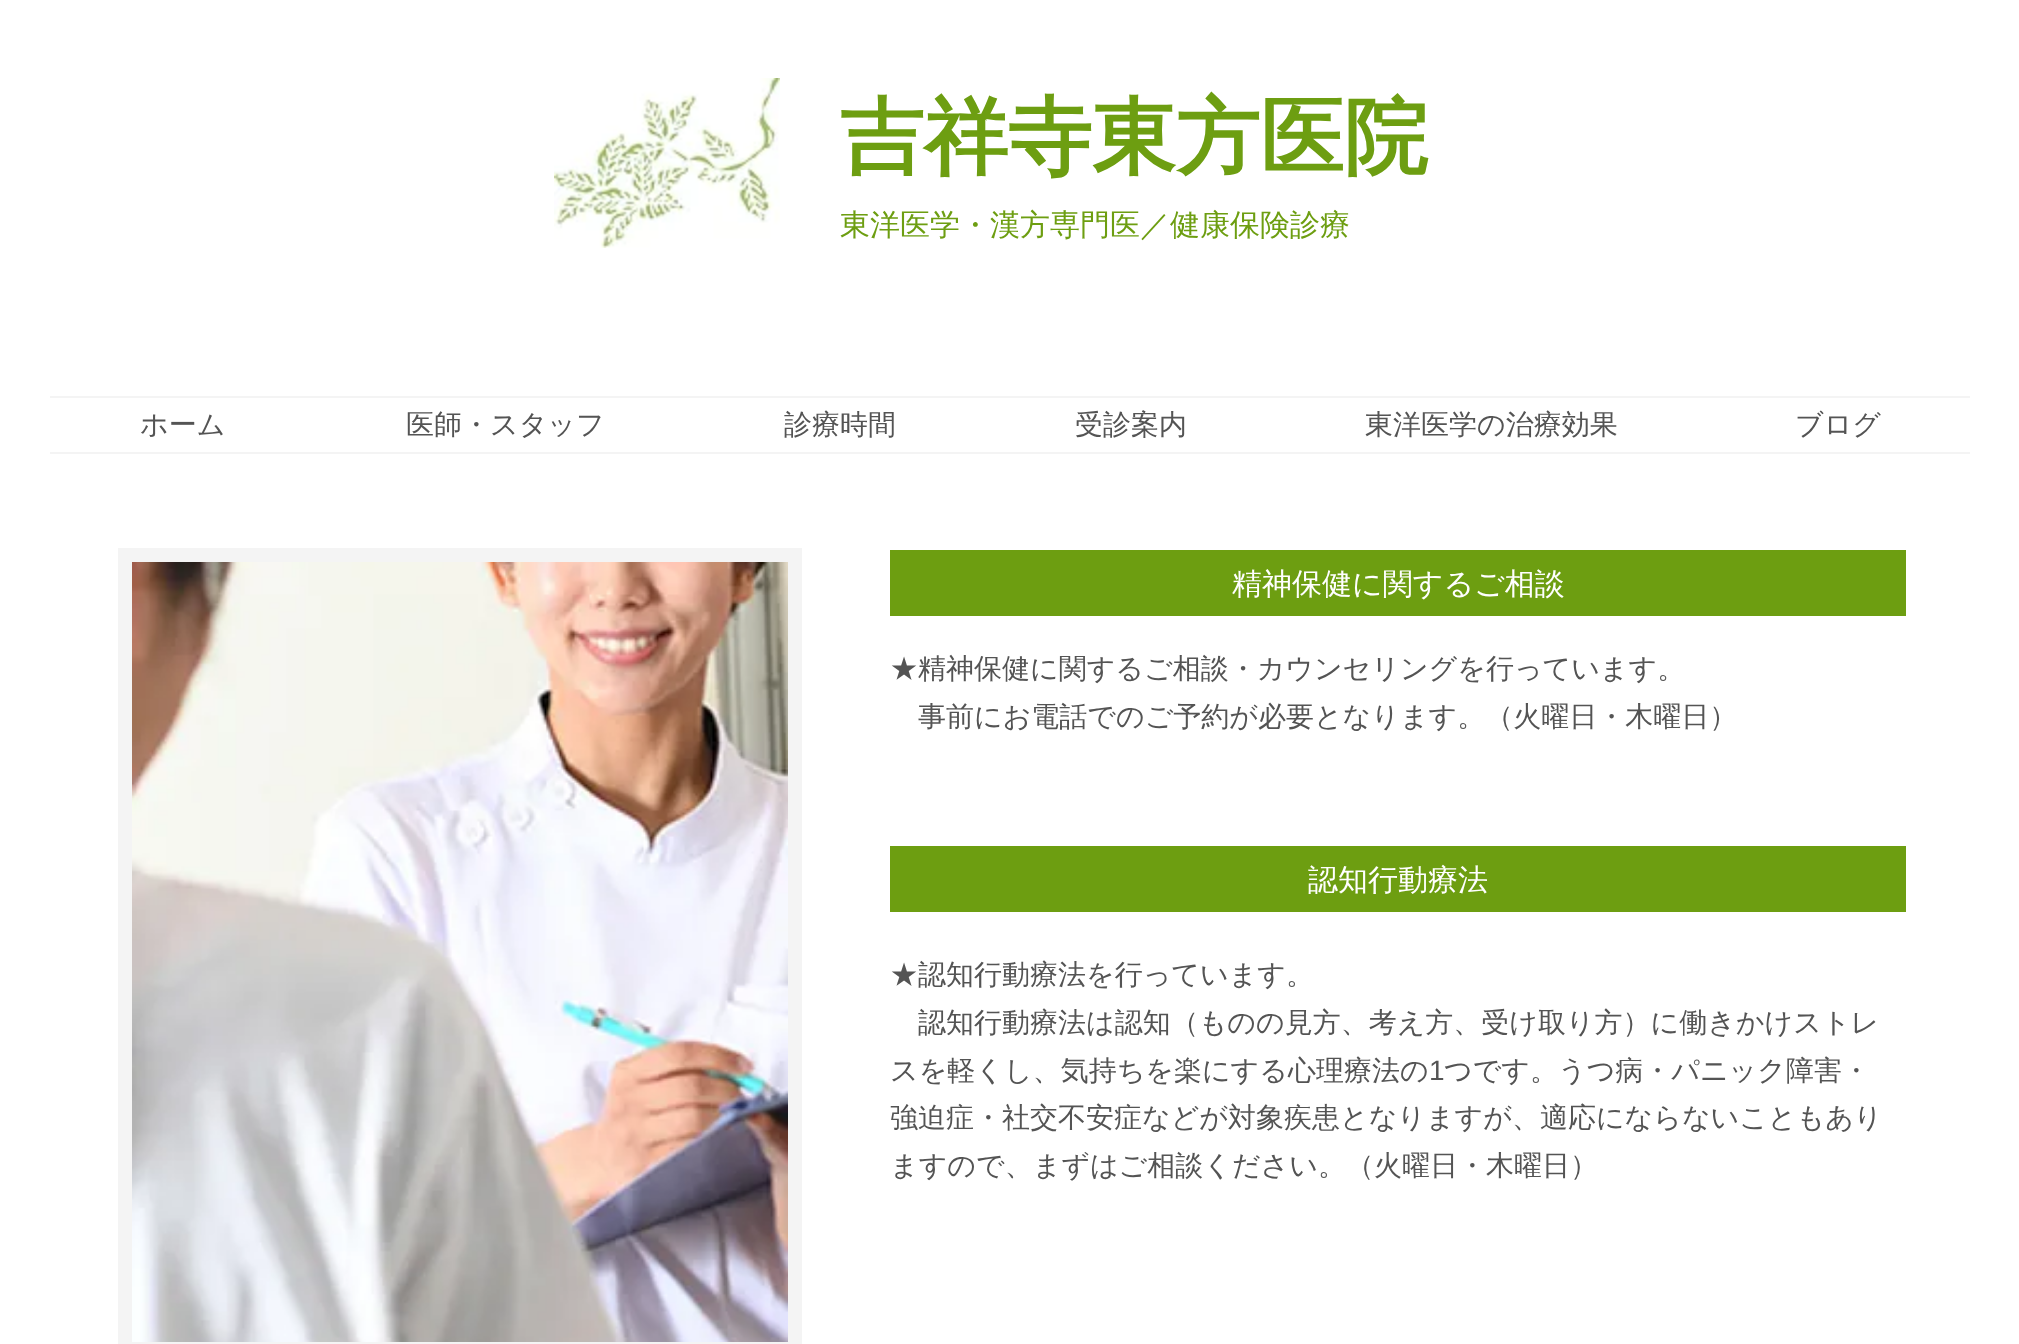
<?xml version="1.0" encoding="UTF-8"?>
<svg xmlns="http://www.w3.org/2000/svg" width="2019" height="1344">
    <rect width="100%" height="100%" fill="#FFFFFF"/>
    <image x="554" y="78" width="226" height="170" href="img_01.png"/>
    <text x="840" y="166" font-family="WenQuanYi Zen Hei" font-size="84" font-weight="700" fill="#6D9E11">吉祥寺東方医院</text>
    <text x="840" y="235" font-family="WenQuanYi Zen Hei" font-size="30" font-weight="500" fill="#6D9E11">東洋医学・漢方専門医／健康保険診療</text>
    <rect x="50" y="396" width="1920" height="2" fill="#F4F4F4"/>
    <rect x="50" y="452" width="1920" height="2" fill="#F4F4F4"/>
    <text x="140" y="434" font-family="WenQuanYi Zen Hei" font-size="28" font-weight="500" fill="#545454">ホーム</text>
    <text x="406" y="434" font-family="WenQuanYi Zen Hei" font-size="28" font-weight="500" fill="#545454">医師・スタッフ</text>
    <text x="784" y="434" font-family="WenQuanYi Zen Hei" font-size="28" font-weight="500" fill="#545454">診療時間</text>
    <text x="1075" y="434" font-family="WenQuanYi Zen Hei" font-size="28" font-weight="500" fill="#545454">受診案内</text>
    <text x="1365" y="434" font-family="WenQuanYi Zen Hei" font-size="28" font-weight="500" fill="#545454">東洋医学の治療効果</text>
    <text x="1795" y="434" font-family="WenQuanYi Zen Hei" font-size="28" font-weight="500" fill="#545454">ブログ</text>
    <rect x="118" y="548" width="684" height="796" fill="#F4F4F4"/>
    <image x="132" y="562" width="656" height="780" href="img_02.png"/>
    <rect x="890" y="550" width="1016" height="66" fill="#6D9E11"/>
    <text x="1232" y="594" font-family="WenQuanYi Zen Hei" font-size="30" font-weight="500" fill="#FFFFFF">精神保健に関するご相談</text>
    <text x="890" y="678" font-family="WenQuanYi Zen Hei" font-size="28" font-weight="500" fill="#545454">★精神保健に関するご相談・カウンセリングを行っています。</text>
    <text x="918" y="726" font-family="WenQuanYi Zen Hei" font-size="28" font-weight="500" fill="#545454">事前にお電話でのご予約が必要となります。（火曜日・木曜日）</text>
    <rect x="890" y="846" width="1016" height="66" fill="#6D9E11"/>
    <text x="1308" y="890" font-family="WenQuanYi Zen Hei" font-size="30" font-weight="500" fill="#FFFFFF">認知行動療法</text>
    <text x="890" y="984" font-family="WenQuanYi Zen Hei" font-size="28" font-weight="500" fill="#545454">★認知行動療法を行っています。</text>
    <text x="918" y="1032" font-family="WenQuanYi Zen Hei" font-size="28" font-weight="500" fill="#545454">認知行動療法は認知（ものの見方、考え方、受け取り方）に働きかけストレ</text>
    <text x="890" y="1080" font-family="WenQuanYi Zen Hei" font-size="28" font-weight="500" fill="#545454">スを軽くし、気持ちを楽にする心理療法の</text>
    <text x="1429" y="1080" font-family="Liberation Sans" font-size="28" fill="#545454">1</text>
    <text x="1444" y="1080" font-family="WenQuanYi Zen Hei" font-size="28" font-weight="500" fill="#545454">つです。うつ病・パニック障害・</text>
    <text font-family="WenQuanYi Zen Hei" font-size="28" font-weight="500" fill="#545454">
        <tspan x="890" y="1127">強迫症・社交不安症などが対象疾患となりますが、適応にならないこともあり</tspan>
        <tspan x="890" y="1175">ますので、まずはご相談ください。（火曜日・木曜日）</tspan>
    </text>
</svg>
